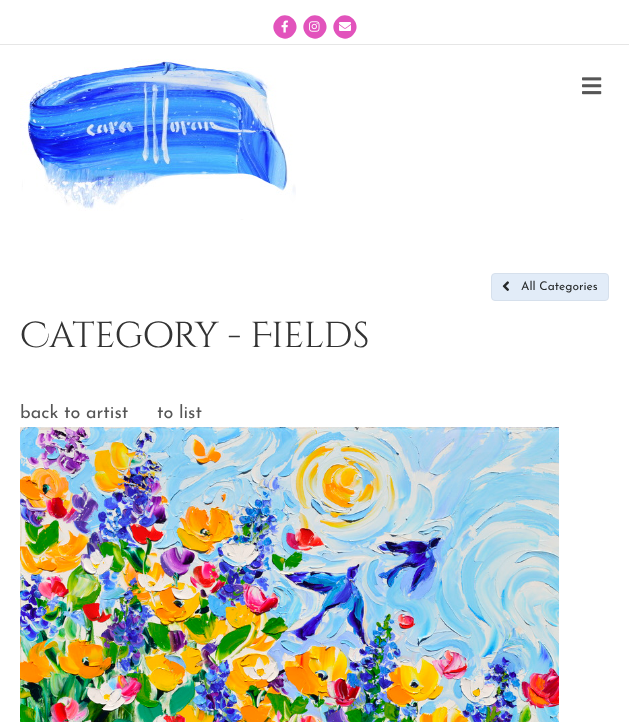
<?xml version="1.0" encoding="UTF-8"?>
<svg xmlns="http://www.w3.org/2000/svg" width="629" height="722">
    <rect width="100%" height="100%" fill="#FFFFFF"/>
    <rect x="0" y="44" width="629" height="1" fill="#E6E6E6"/>
    <path d="M 277 19 C 287.5 8 304 24.5 293 35 C 282.5 46 266 29.5 277 19 Z" fill="#E253BC"/>
    <image x="281" y="20" width="7" height="13" href="img_01.png"/>
    <path d="M 307 19 C 317.5 8 334 24.5 323 35 C 312.5 46 296 29.5 307 19 Z" fill="#E253BC"/>
    <image x="309" y="21" width="11" height="11" href="img_02.png"/>
    <path d="M 337 19 C 347.5 8 364 24.5 353 35 C 342.5 46 326 29.5 337 19 Z" fill="#E253BC"/>
    <image x="339" y="22" width="12" height="9" href="img_03.png"/>
    <image x="20" y="59" width="276" height="161" href="img_04.png"/>
    <image x="582" y="77" width="20" height="18" href="img_05.png"/>
    <rect x="491.5" y="273.5" width="117" height="27" rx="3.5" fill="#E2ECF8" stroke="#D6E0EC"/>
    <image x="502" y="281" width="7" height="10" href="img_06.png"/>
    <text x="521" y="290" font-family="Josefin Sans" font-size="12" fill="#26292A">All Categories</text>
    <text x="20" y="347" font-family="Cinzel Decorative" font-size="36" fill="#333333">Category - Fields</text>
    <text x="20" y="418" font-family="Josefin Sans" font-size="18" fill="#565656">back to artist</text>
    <text x="157" y="418" font-family="Josefin Sans" font-size="18" fill="#565656">to list</text>
    <image x="20" y="427" width="539" height="295" href="img_07.png"/>
</svg>
